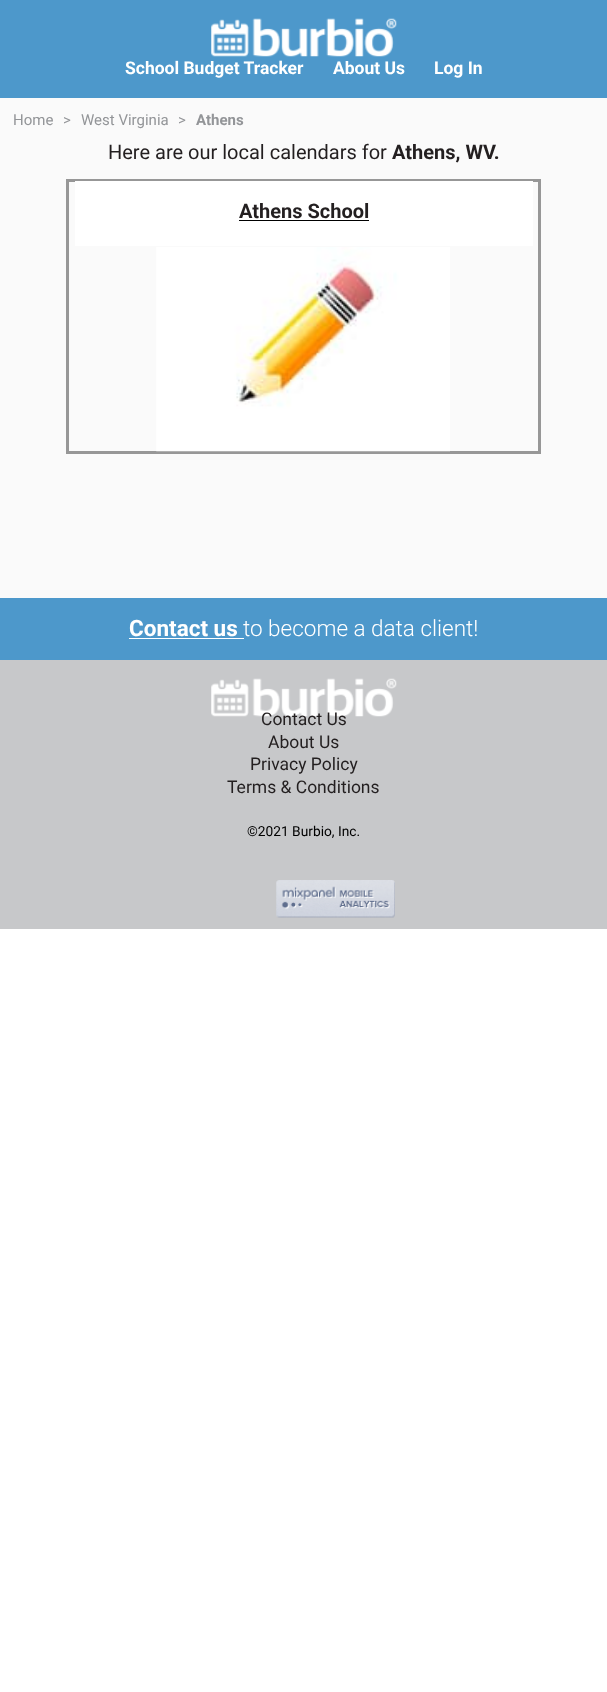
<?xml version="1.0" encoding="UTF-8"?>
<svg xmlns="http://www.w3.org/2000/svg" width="607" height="1692">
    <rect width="100%" height="100%" fill="#FFFFFF"/>
    <rect x="0" y="0" width="607" height="98" fill="#4D98CB"/>
    <image x="211" y="18" width="186" height="39" href="img_01.png"/>
    <text x="125" y="74" font-family="Roboto" font-size="17.5" font-weight="700" fill="#FFFFFF">School Budget Tracker</text>
    <text x="333" y="74" font-family="Roboto" font-size="17.5" font-weight="700" fill="#FFFFFF">About Us</text>
    <text x="434" y="74" font-family="Roboto" font-size="17.5" font-weight="700" fill="#FFFFFF">Log In</text>
    <rect x="0" y="98" width="607" height="500" fill="#FAFAFA"/>
    <text x="13" y="125" font-family="Roboto" font-size="15" fill="#939598">Home</text>
    <text x="63" y="125" font-family="Roboto" font-size="15" fill="#939598">&gt;</text>
    <text x="81" y="125" font-family="Roboto" font-size="15" fill="#939598">West Virginia</text>
    <text x="178" y="125" font-family="Roboto" font-size="15" fill="#939598">&gt;</text>
    <text x="196" y="125" font-family="Roboto" font-size="15" font-weight="700" fill="#939598">Athens</text>
    <text x="108" y="159" font-family="Roboto" font-size="20" fill="#231F20">Here are our local calendars for</text>
    <text x="392" y="159" font-family="Roboto" font-size="20" font-weight="700" fill="#231F20">Athens, WV.</text>
    <rect x="67.5" y="180.5" width="472" height="272" fill="none" stroke="#979797" stroke-width="3"/>
    <rect x="75" y="181" width="458" height="65" fill="#FFFFFF"/>
    <text x="239" y="218" font-family="Roboto" font-size="20" font-weight="700" fill="#231F20">Athens School</text>
    <rect x="239" y="220" width="130" height="1" fill="#000000"/>
    <image x="156" y="247" width="294" height="205" href="img_02.png"/>
    <rect x="0" y="598" width="607" height="62" fill="#4D98CB"/>
    <text x="129" y="636" font-family="Roboto" font-size="22.5" font-weight="700" fill="#FFFFFF">Contact us</text>
    <rect x="129" y="638" width="115" height="1" fill="#FFFFFF"/>
    <text x="243" y="636" font-family="Roboto" font-size="22.5" font-weight="300" fill="#FFFFFF">to become a data client!</text>
    <rect x="0" y="660" width="607" height="269" fill="#C7C8CA"/>
    <image x="211" y="678" width="186" height="39" href="img_03.png"/>
    <text x="261" y="725" font-family="Roboto" font-size="17.5" fill="#231F20">Contact Us</text>
    <text x="268" y="748" font-family="Roboto" font-size="17.5" fill="#231F20">About Us</text>
    <text x="250" y="770" font-family="Roboto" font-size="17.5" fill="#231F20">Privacy Policy</text>
    <text x="227" y="793" font-family="Roboto" font-size="17.5" fill="#231F20">Terms &amp; Conditions</text>
    <text x="247" y="836" font-family="Roboto" font-size="13.75" fill="#000000">©2021 Burbio, Inc.</text>
    <image x="276" y="880" width="119" height="38" href="img_04.png"/>
</svg>
